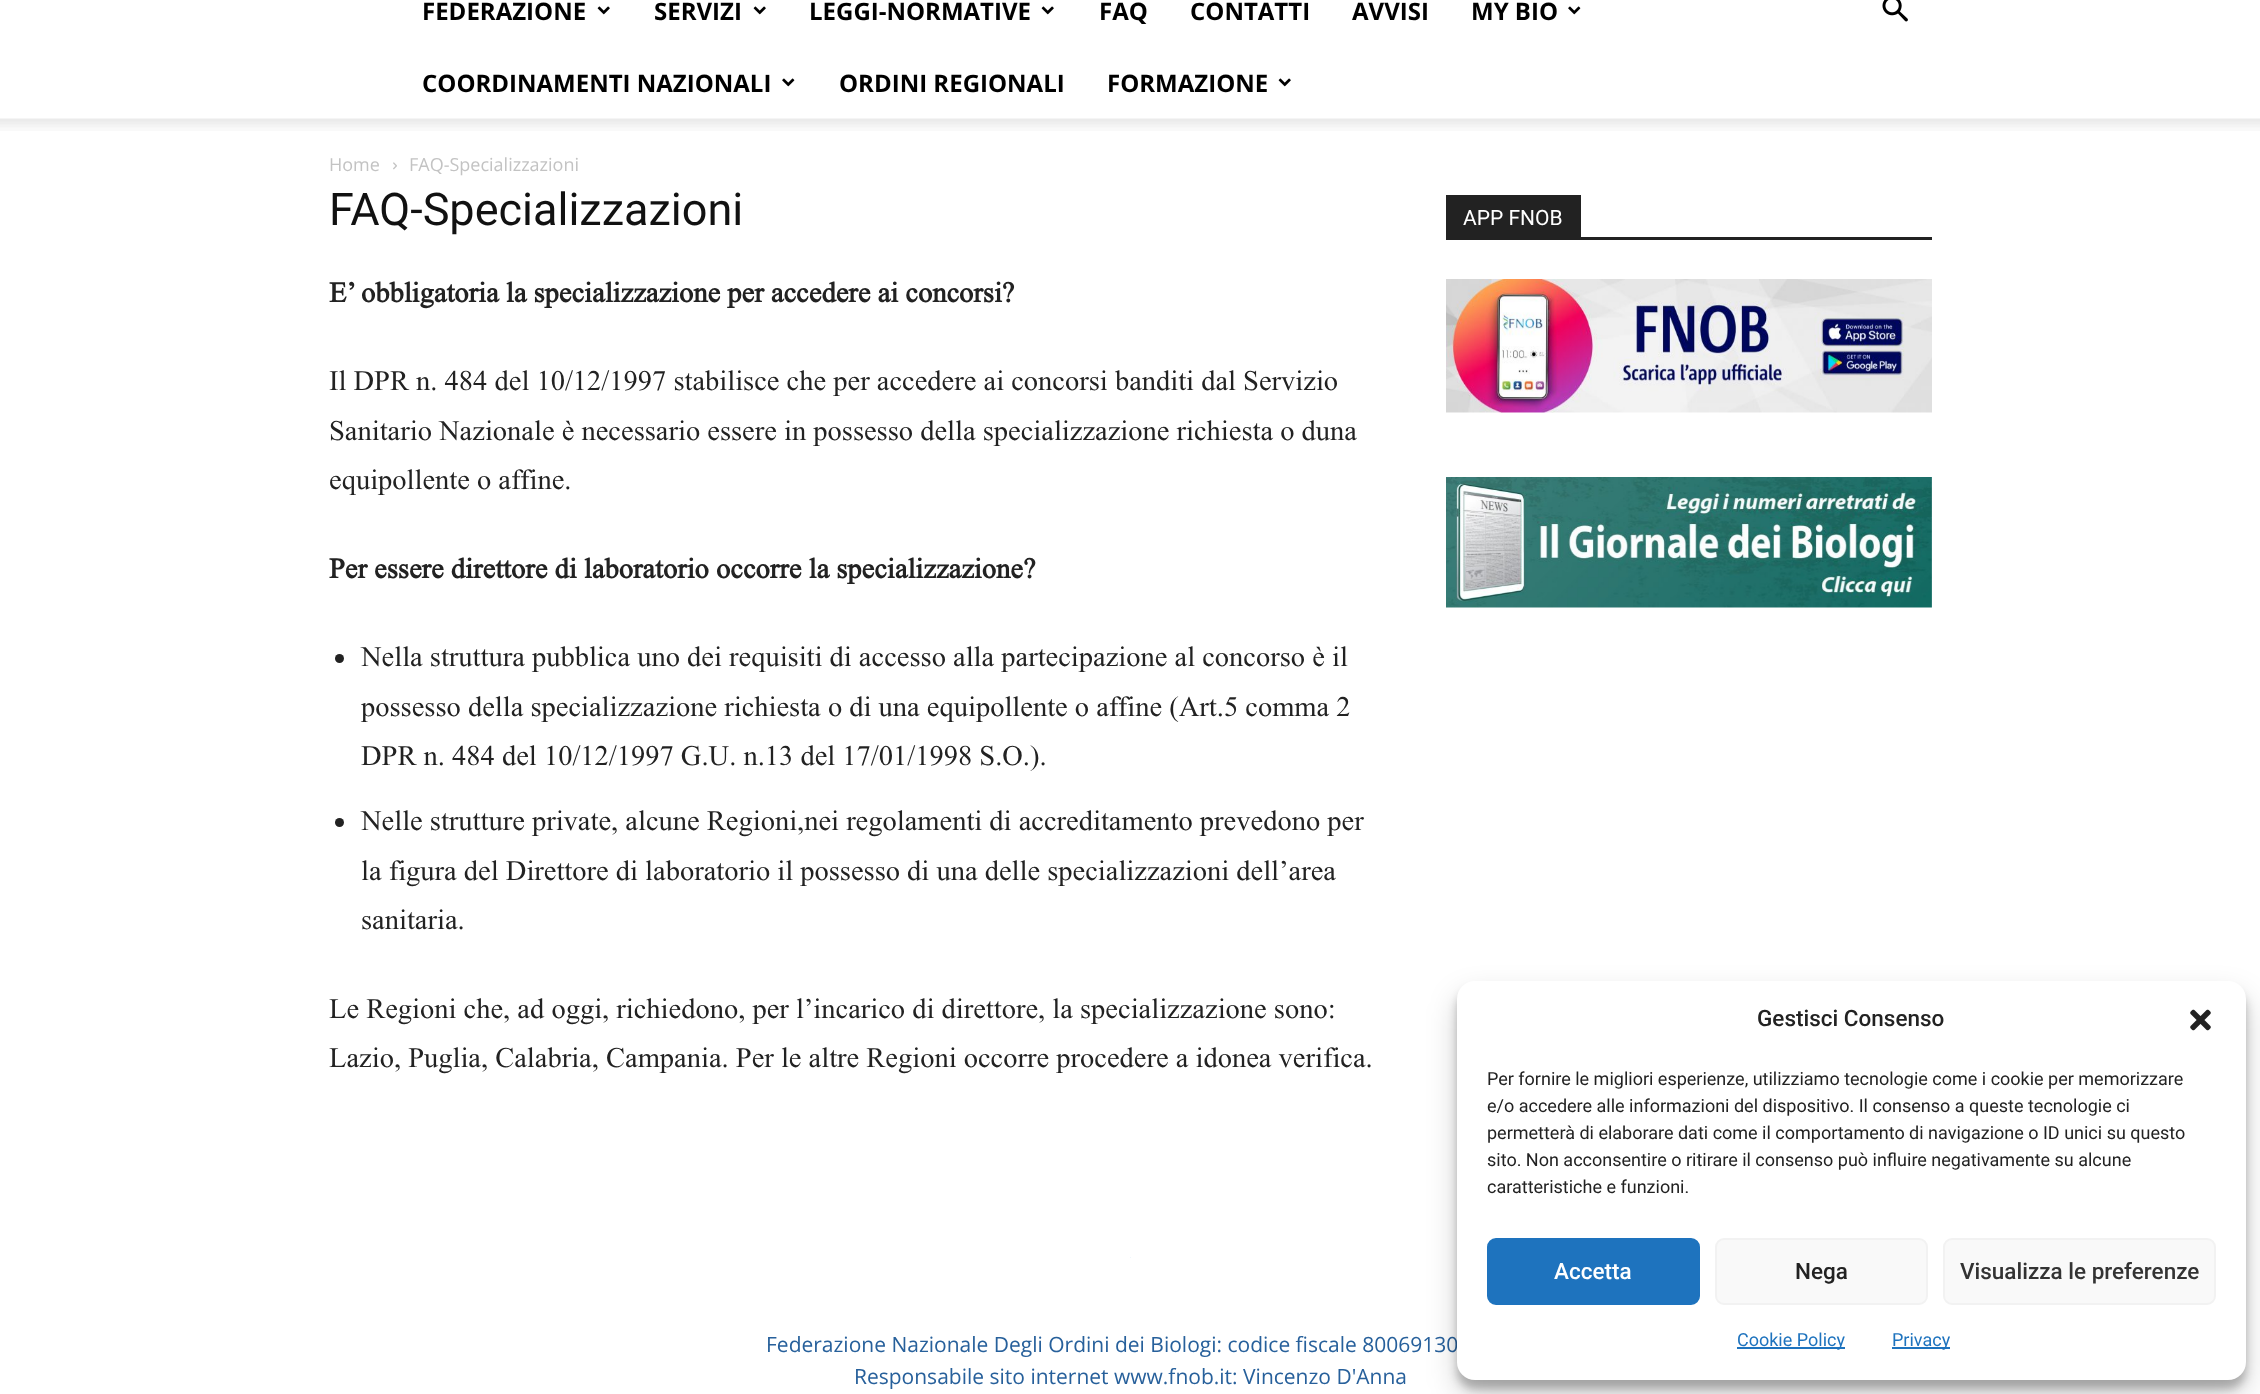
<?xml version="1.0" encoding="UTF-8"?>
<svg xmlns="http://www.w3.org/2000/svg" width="2260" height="1394">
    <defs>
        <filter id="blur1" x="-50%" y="-200%" width="200%" height="500%"><feGaussianBlur stdDeviation="4.5"/></filter>
        <filter id="blur2" x="-50%" y="-200%" width="200%" height="500%"><feGaussianBlur stdDeviation="15"/></filter>
    </defs>
    <rect width="100%" height="100%" fill="#FFFFFF"/>
    <text x="422" y="20" font-family="Open Sans" font-size="24" font-weight="700" fill="#000000">FEDERAZIONE</text>
    <image x="597" y="6" width="13" height="9" href="img_01.png"/>
    <text x="654" y="20" font-family="Open Sans" font-size="24" font-weight="700" fill="#000000">SERVIZI</text>
    <image x="753" y="6" width="13" height="9" href="img_01.png"/>
    <text x="809" y="20" font-family="Open Sans" font-size="24" font-weight="700" fill="#000000">LEGGI-NORMATIVE</text>
    <image x="1041" y="6" width="13" height="9" href="img_01.png"/>
    <text x="1099" y="20" font-family="Open Sans" font-size="24" font-weight="700" fill="#000000">FAQ</text>
    <text x="1190" y="20" font-family="Open Sans" font-size="24" font-weight="700" fill="#000000">CONTATTI</text>
    <text x="1352" y="20" font-family="Open Sans" font-size="24" font-weight="700" fill="#000000">AVVISI</text>
    <text x="1471" y="20" font-family="Open Sans" font-size="24" font-weight="700" fill="#000000">MY BIO</text>
    <image x="1568" y="6" width="13" height="9" href="img_02.png"/>
    <text x="422" y="92" font-family="Open Sans" font-size="24" font-weight="700" fill="#000000">COORDINAMENTI NAZIONALI</text>
    <image x="782" y="78" width="13" height="9" href="img_02.png"/>
    <text x="839" y="92" font-family="Open Sans" font-size="24" font-weight="700" fill="#000000">ORDINI REGIONALI</text>
    <text x="1107" y="92" font-family="Open Sans" font-size="24" font-weight="700" fill="#000000">FORMAZIONE</text>
    <image x="1278" y="78" width="13" height="9" href="img_01.png"/>
    <image x="1882" y="0" width="26" height="22" href="img_03.png"/>
    <image x="0" y="118" width="2260" height="13" href="img_04.png"/>
    <text x="329" y="171" font-family="Open Sans" font-size="18" fill="#C3C3C3">Home</text>
    <image x="393" y="162" width="4" height="8" href="img_05.png"/>
    <text x="409" y="171" font-family="Open Sans" font-size="18" fill="#C3C3C3">FAQ-Specializzazioni</text>
    <text x="329" y="225" font-family="Roboto" font-size="45" fill="#111111">FAQ-Specializzazioni</text>
    <text x="329" y="302" font-family="Times New Roman" font-size="28.5" font-weight="700" fill="#222222">E’ obbligatoria la specializzazione per accedere ai concorsi?</text>
    <text font-family="Times New Roman" font-size="28.5" fill="#222222">
        <tspan x="329" y="390">Il DPR n. 484 del 10/12/1997 stabilisce che per accedere ai concorsi banditi dal Servizio</tspan>
        <tspan x="329" y="440">Sanitario Nazionale è necessario essere in possesso della specializzazione richiesta o duna</tspan>
        <tspan x="329" y="489">equipollente o affine.</tspan>
    </text>
    <text x="329" y="578" font-family="Times New Roman" font-size="28.5" font-weight="700" fill="#222222">Per essere direttore di laboratorio occorre la specializzazione?</text>
    <circle cx="339.5" cy="658.5" r="4.5" fill="#222222"/>
    <text font-family="Times New Roman" font-size="28.5" fill="#222222">
        <tspan x="361" y="666">Nella struttura pubblica uno dei requisiti di accesso alla partecipazione al concorso è il</tspan>
        <tspan x="361" y="716">possesso della specializzazione richiesta o di una equipollente o affine (Art.5 comma 2</tspan>
        <tspan x="361" y="765">DPR n. 484 del 10/12/1997 G.U. n.13 del 17/01/1998 S.O.).</tspan>
    </text>
    <circle cx="339.5" cy="822.5" r="4.5" fill="#222222"/>
    <text font-family="Times New Roman" font-size="28.5" fill="#222222">
        <tspan x="361" y="830">Nelle strutture private, alcune Regioni,nei regolamenti di accreditamento prevedono per</tspan>
        <tspan x="361" y="880">la figura del Direttore di laboratorio il possesso di una delle specializzazioni dell’area</tspan>
        <tspan x="361" y="929">sanitaria.</tspan>
    </text>
    <text font-family="Times New Roman" font-size="28.5" fill="#222222">
        <tspan x="329" y="1018">Le Regioni che, ad oggi, richiedono, per l’incarico di direttore, la specializzazione sono:</tspan>
        <tspan x="329" y="1067">Lazio, Puglia, Calabria, Campania. Per le altre Regioni occorre procedere a idonea verifica.</tspan>
    </text>
    <rect x="1446" y="237" width="486" height="3" fill="#222222"/>
    <rect x="1446" y="195" width="135" height="42" fill="#222222"/>
    <text x="1463" y="225" font-family="Roboto" font-size="21" fill="#FFFFFF">APP FNOB</text>
    <image x="1446" y="279" width="486" height="134" href="img_06.png"/>
    <image x="1446" y="477" width="486" height="131" href="img_07.png"/>
    <rect x="1130" y="1257" width="1" height="1" fill="#EEF7FC"/>
    <text x="766" y="1352" font-family="Open Sans" font-size="21" fill="#27609B">Federazione Nazionale Degli Ordini dei Biologi: codice fiscale 80069130</text>
    <text x="854" y="1384" font-family="Open Sans" font-size="21" fill="#27609B">Responsabile sito internet www.fnob.it: Vincenzo D'Anna</text>
    <rect x="1457" y="990" width="789" height="399" rx="18" fill="#000000" fill-opacity="0.23" filter="url(#blur1)"/>
    <rect x="1457" y="996" width="789" height="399" rx="18" fill="#000000" fill-opacity="0.19" filter="url(#blur2)"/>
    <rect x="1457" y="981" width="789" height="399" rx="18" fill="#FFFFFF"/>
    <text x="1757" y="1026" font-family="Roboto" font-size="22.5" font-weight="500" fill="#222222">Gestisci Consenso</text>
    <image x="2190" y="1009" width="21" height="22" href="img_08.png"/>
    <text font-family="Roboto" font-size="18" fill="#222222">
        <tspan x="1487" y="1085">Per fornire le migliori esperienze, utilizziamo tecnologie come i cookie per memorizzare</tspan>
        <tspan x="1487" y="1112">e/o accedere alle informazioni del dispositivo. Il consenso a queste tecnologie ci</tspan>
        <tspan x="1487" y="1139">permetterà di elaborare dati come il comportamento di navigazione o ID unici su questo</tspan>
        <tspan x="1487" y="1166">sito. Non acconsentire o ritirare il consenso può influire negativamente su alcune</tspan>
        <tspan x="1487" y="1193">caratteristiche e funzioni.</tspan>
    </text>
    <rect x="1488" y="1239" width="211" height="65" rx="8" fill="#1E73BE" stroke="#1E73BE" stroke-width="2"/>
    <text x="1554" y="1279" font-family="Roboto" font-size="22.5" font-weight="500" fill="#FFFFFF">Accetta</text>
    <rect x="1716" y="1239" width="211" height="65" rx="8" fill="#F9F9F9" stroke="#F2F2F2" stroke-width="2"/>
    <text x="1795" y="1279" font-family="Roboto" font-size="22.5" font-weight="500" fill="#222222">Nega</text>
    <rect x="1944" y="1239" width="271" height="65" rx="8" fill="#F9F9F9" stroke="#F2F2F2" stroke-width="2"/>
    <text x="1960" y="1279" font-family="Roboto" font-size="22.5" font-weight="500" fill="#333333">Visualizza le preferenze</text>
    <rect x="1737" y="1347" width="108" height="2" fill="#1E73BE"/>
    <text x="1737" y="1346" font-family="Roboto" font-size="18" fill="#1E73BE">Cookie Policy</text>
    <rect x="1892" y="1347" width="58" height="2" fill="#1E73BE"/>
    <text x="1892" y="1346" font-family="Roboto" font-size="18" fill="#1E73BE">Privacy</text>
</svg>
